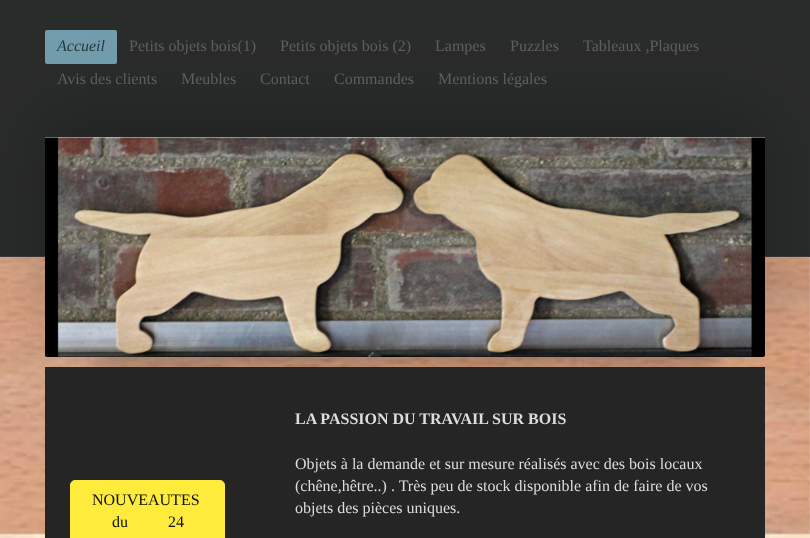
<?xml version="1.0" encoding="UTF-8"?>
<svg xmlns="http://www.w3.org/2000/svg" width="810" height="538">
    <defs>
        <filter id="blur1" x="-50%" y="-200%" width="200%" height="500%"><feGaussianBlur stdDeviation="40"/></filter>
        <filter id="blur2" x="-50%" y="-200%" width="200%" height="500%"><feGaussianBlur stdDeviation="10"/></filter>
    </defs>
    <rect width="100%" height="100%" fill="#FFFFFF"/>
    <image x="0" y="257" width="810" height="281" href="img_01.png"/>
    <rect x="0" y="0" width="810" height="256" fill="#2A2B2B"/>
    <rect x="0" y="256" width="810" height="1" fill="#3C3E3E"/>
    <rect x="45" y="30" width="72" height="34" rx="2" fill="#729DAD"/>
    <rect x="45" y="117" width="720" height="220" rx="2" fill="#000000" fill-opacity="0.24" filter="url(#blur1)"/>
    <rect x="95" y="251" width="620" height="120" fill="#000000" fill-opacity="0.18" filter="url(#blur2)"/>
    <image x="45" y="137" width="720" height="220" href="img_02.png"/>
    <rect x="45" y="137" width="720" height="1" fill="#FFFFFF" fill-opacity="0.4"/>
    <path d="M 45 356 L 47 357 H 763 L 765 356 Z" fill="#000000" fill-opacity="0.3"/>
    <text x="57" y="51" font-family="Liberation Serif" font-size="16" font-style="italic" fill="#273A41">Accueil</text>
    <text x="129" y="51" font-family="Liberation Serif" font-size="16" fill="#5E5E5E">Petits objets bois(1)</text>
    <text x="280" y="51" font-family="Liberation Serif" font-size="16" fill="#5E5E5E">Petits objets bois (2)</text>
    <text x="435" y="51" font-family="Liberation Serif" font-size="16" fill="#5E5E5E">Lampes</text>
    <text x="510" y="51" font-family="Liberation Serif" font-size="16" fill="#5E5E5E">Puzzles</text>
    <text x="583" y="51" font-family="Liberation Serif" font-size="16" fill="#5E5E5E">Tableaux ,Plaques</text>
    <text x="57" y="84" font-family="Liberation Serif" font-size="16" fill="#5E5E5E">Avis des clients</text>
    <text x="181" y="84" font-family="Liberation Serif" font-size="16" fill="#5E5E5E">Meubles</text>
    <text x="260" y="84" font-family="Liberation Serif" font-size="16" fill="#5E5E5E">Contact</text>
    <text x="334" y="84" font-family="Liberation Serif" font-size="16" fill="#5E5E5E">Commandes</text>
    <text x="438" y="84" font-family="Liberation Serif" font-size="16" fill="#5E5E5E">Mentions légales</text>
    <rect x="45" y="367" width="720" height="171" fill="#252525"/>
    <rect x="70.5" y="480.5" width="154" height="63" rx="4.5" fill="#FFEB3C" stroke="#FFEB3C"/>
    <text x="92" y="505" font-family="Liberation Serif" font-size="16" fill="#0B1011">NOUVEAUTES</text>
    <text x="112" y="527" font-family="Liberation Serif" font-size="16" fill="#0B1011" xml:space="preserve">du          24</text>
    <text x="295" y="424" font-family="Liberation Serif" font-size="16" font-weight="700" fill="#DDDDDD">LA PASSION DU TRAVAIL SUR BOIS</text>
    <text font-family="Liberation Serif" font-size="16" fill="#DDDDDD">
        <tspan x="295" y="469">Objets à la demande et sur mesure réalisés avec des bois locaux</tspan>
        <tspan x="295" y="491">(chêne,hêtre..) . Très peu de stock disponible afin de faire de vos</tspan>
        <tspan x="295" y="513">objets des pièces uniques.</tspan>
    </text>
</svg>
